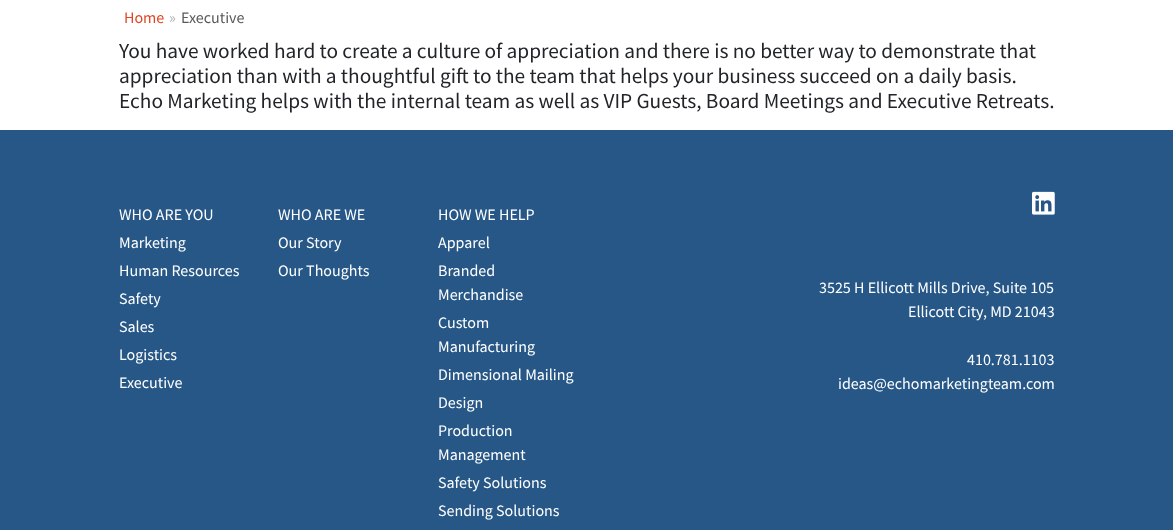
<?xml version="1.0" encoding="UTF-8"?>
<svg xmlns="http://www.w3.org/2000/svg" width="1173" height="530">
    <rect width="100%" height="100%" fill="#FFFFFF"/>
    <text x="124" y="23" font-family="Source Sans Pro" font-size="16" fill="#E04726">Home</text>
    <text x="169" y="23" font-family="Source Sans Pro" font-size="16" fill="#B2B1B1">»</text>
    <text x="181" y="23" font-family="Source Sans Pro" font-size="16" fill="#5B5A5A">Executive</text>
    <text font-family="Source Sans Pro" font-size="21.35" fill="#212529">
        <tspan x="119" y="58">You have worked hard to create a culture of appreciation and there is no better way to demonstrate that</tspan>
        <tspan x="119" y="83">appreciation than with a thoughtful gift to the team that helps your business succeed on a daily basis.</tspan>
        <tspan x="119" y="108">Echo Marketing helps with the internal team as well as VIP Guests, Board Meetings and Executive Retreats.</tspan>
    </text>
    <rect x="0" y="130" width="1173" height="400" fill="#265787"/>
    <text font-family="Source Sans Pro" font-size="16" fill="#FFFFFF">
        <tspan x="119" y="220">WHO ARE YOU</tspan>
        <tspan x="119" y="248">Marketing</tspan>
        <tspan x="119" y="276">Human Resources</tspan>
        <tspan x="119" y="304">Safety</tspan>
        <tspan x="119" y="332">Sales</tspan>
        <tspan x="119" y="360">Logistics</tspan>
        <tspan x="119" y="388">Executive</tspan>
    </text>
    <text font-family="Source Sans Pro" font-size="16" fill="#FFFFFF">
        <tspan x="278" y="220">WHO ARE WE</tspan>
        <tspan x="278" y="248">Our Story</tspan>
        <tspan x="278" y="276">Our Thoughts</tspan>
    </text>
    <text font-family="Source Sans Pro" font-size="16" fill="#FFFFFF">
        <tspan x="438" y="220">HOW WE HELP</tspan>
        <tspan x="438" y="248">Apparel</tspan>
        <tspan x="438" y="276">Branded</tspan>
        <tspan x="438" y="300">Merchandise</tspan>
        <tspan x="438" y="328">Custom</tspan>
        <tspan x="438" y="352">Manufacturing</tspan>
        <tspan x="438" y="380">Dimensional Mailing</tspan>
        <tspan x="438" y="408">Design</tspan>
        <tspan x="438" y="436">Production</tspan>
        <tspan x="438" y="460">Management</tspan>
        <tspan x="438" y="488">Safety Solutions</tspan>
        <tspan x="438" y="516">Sending Solutions</tspan>
    </text>
    <image x="1032" y="191" width="23" height="24" href="img_01.png"/>
    <text x="819" y="293" font-family="Source Sans Pro" font-size="16" fill="#FFFFFF">3525 H Ellicott Mills Drive, Suite 105</text>
    <text x="908" y="317" font-family="Source Sans Pro" font-size="16" fill="#FFFFFF">Ellicott City, MD 21043</text>
    <text x="967" y="365" font-family="Source Sans Pro" font-size="16" fill="#FFFFFF">410.781.1103</text>
    <text x="838" y="389" font-family="Source Sans Pro" font-size="16" fill="#FFFFFF">ideas@echomarketingteam.com</text>
</svg>
